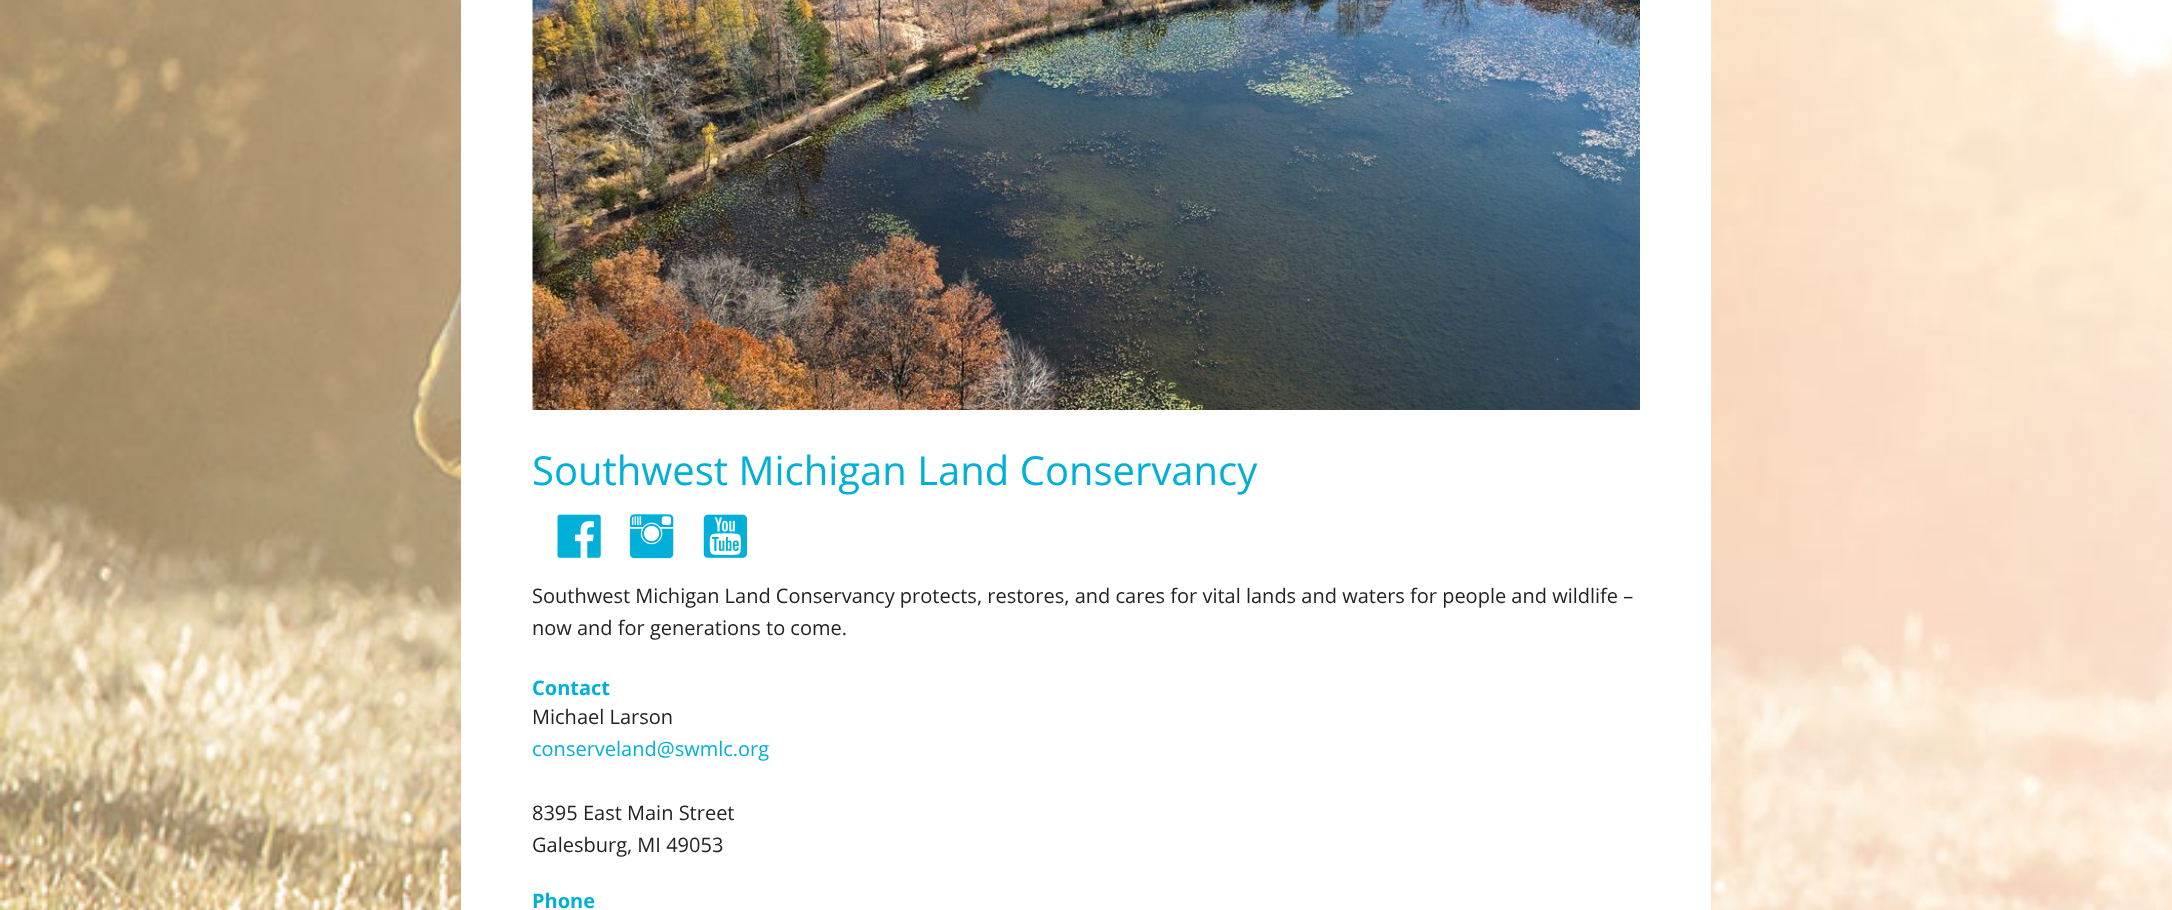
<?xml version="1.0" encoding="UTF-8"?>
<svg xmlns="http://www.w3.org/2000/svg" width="2172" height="910">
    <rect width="100%" height="100%" fill="#FFFFFF"/>
    <image x="0" y="0" width="2172" height="910" href="img_01.png"/>
    <rect x="461" y="0" width="1250" height="910" fill="#FFFFFF"/>
    <image x="532" y="0" width="1108" height="410" href="img_02.png"/>
    <text x="532" y="485" font-family="Open Sans" font-size="40" fill="#00B0D8">Southwest Michigan Land Conservancy</text>
    <image x="557" y="514" width="44" height="44" href="img_03.png"/>
    <image x="630" y="514" width="44" height="45" href="img_04.png"/>
    <image x="703" y="514" width="44" height="44" href="img_05.png"/>
    <text font-family="Open Sans" font-size="20" fill="#222222">
        <tspan x="532" y="603">Southwest Michigan Land Conservancy protects, restores, and cares for vital lands and waters for people and wildlife –</tspan>
        <tspan x="532" y="635">now and for generations to come.</tspan>
    </text>
    <text x="532" y="695" font-family="Open Sans" font-size="20" font-weight="700" fill="#00B0D8">Contact</text>
    <text x="532" y="724" font-family="Open Sans" font-size="20" fill="#222222">Michael Larson</text>
    <text x="532" y="756" font-family="Open Sans" font-size="20" fill="#00B0D8">conserveland@swmlc.org</text>
    <text font-family="Open Sans" font-size="20" fill="#222222">
        <tspan x="532" y="820">8395 East Main Street</tspan>
        <tspan x="532" y="852">Galesburg, MI 49053</tspan>
    </text>
    <text x="532" y="908" font-family="Open Sans" font-size="20" font-weight="700" fill="#00B0D8">Phone</text>
</svg>
